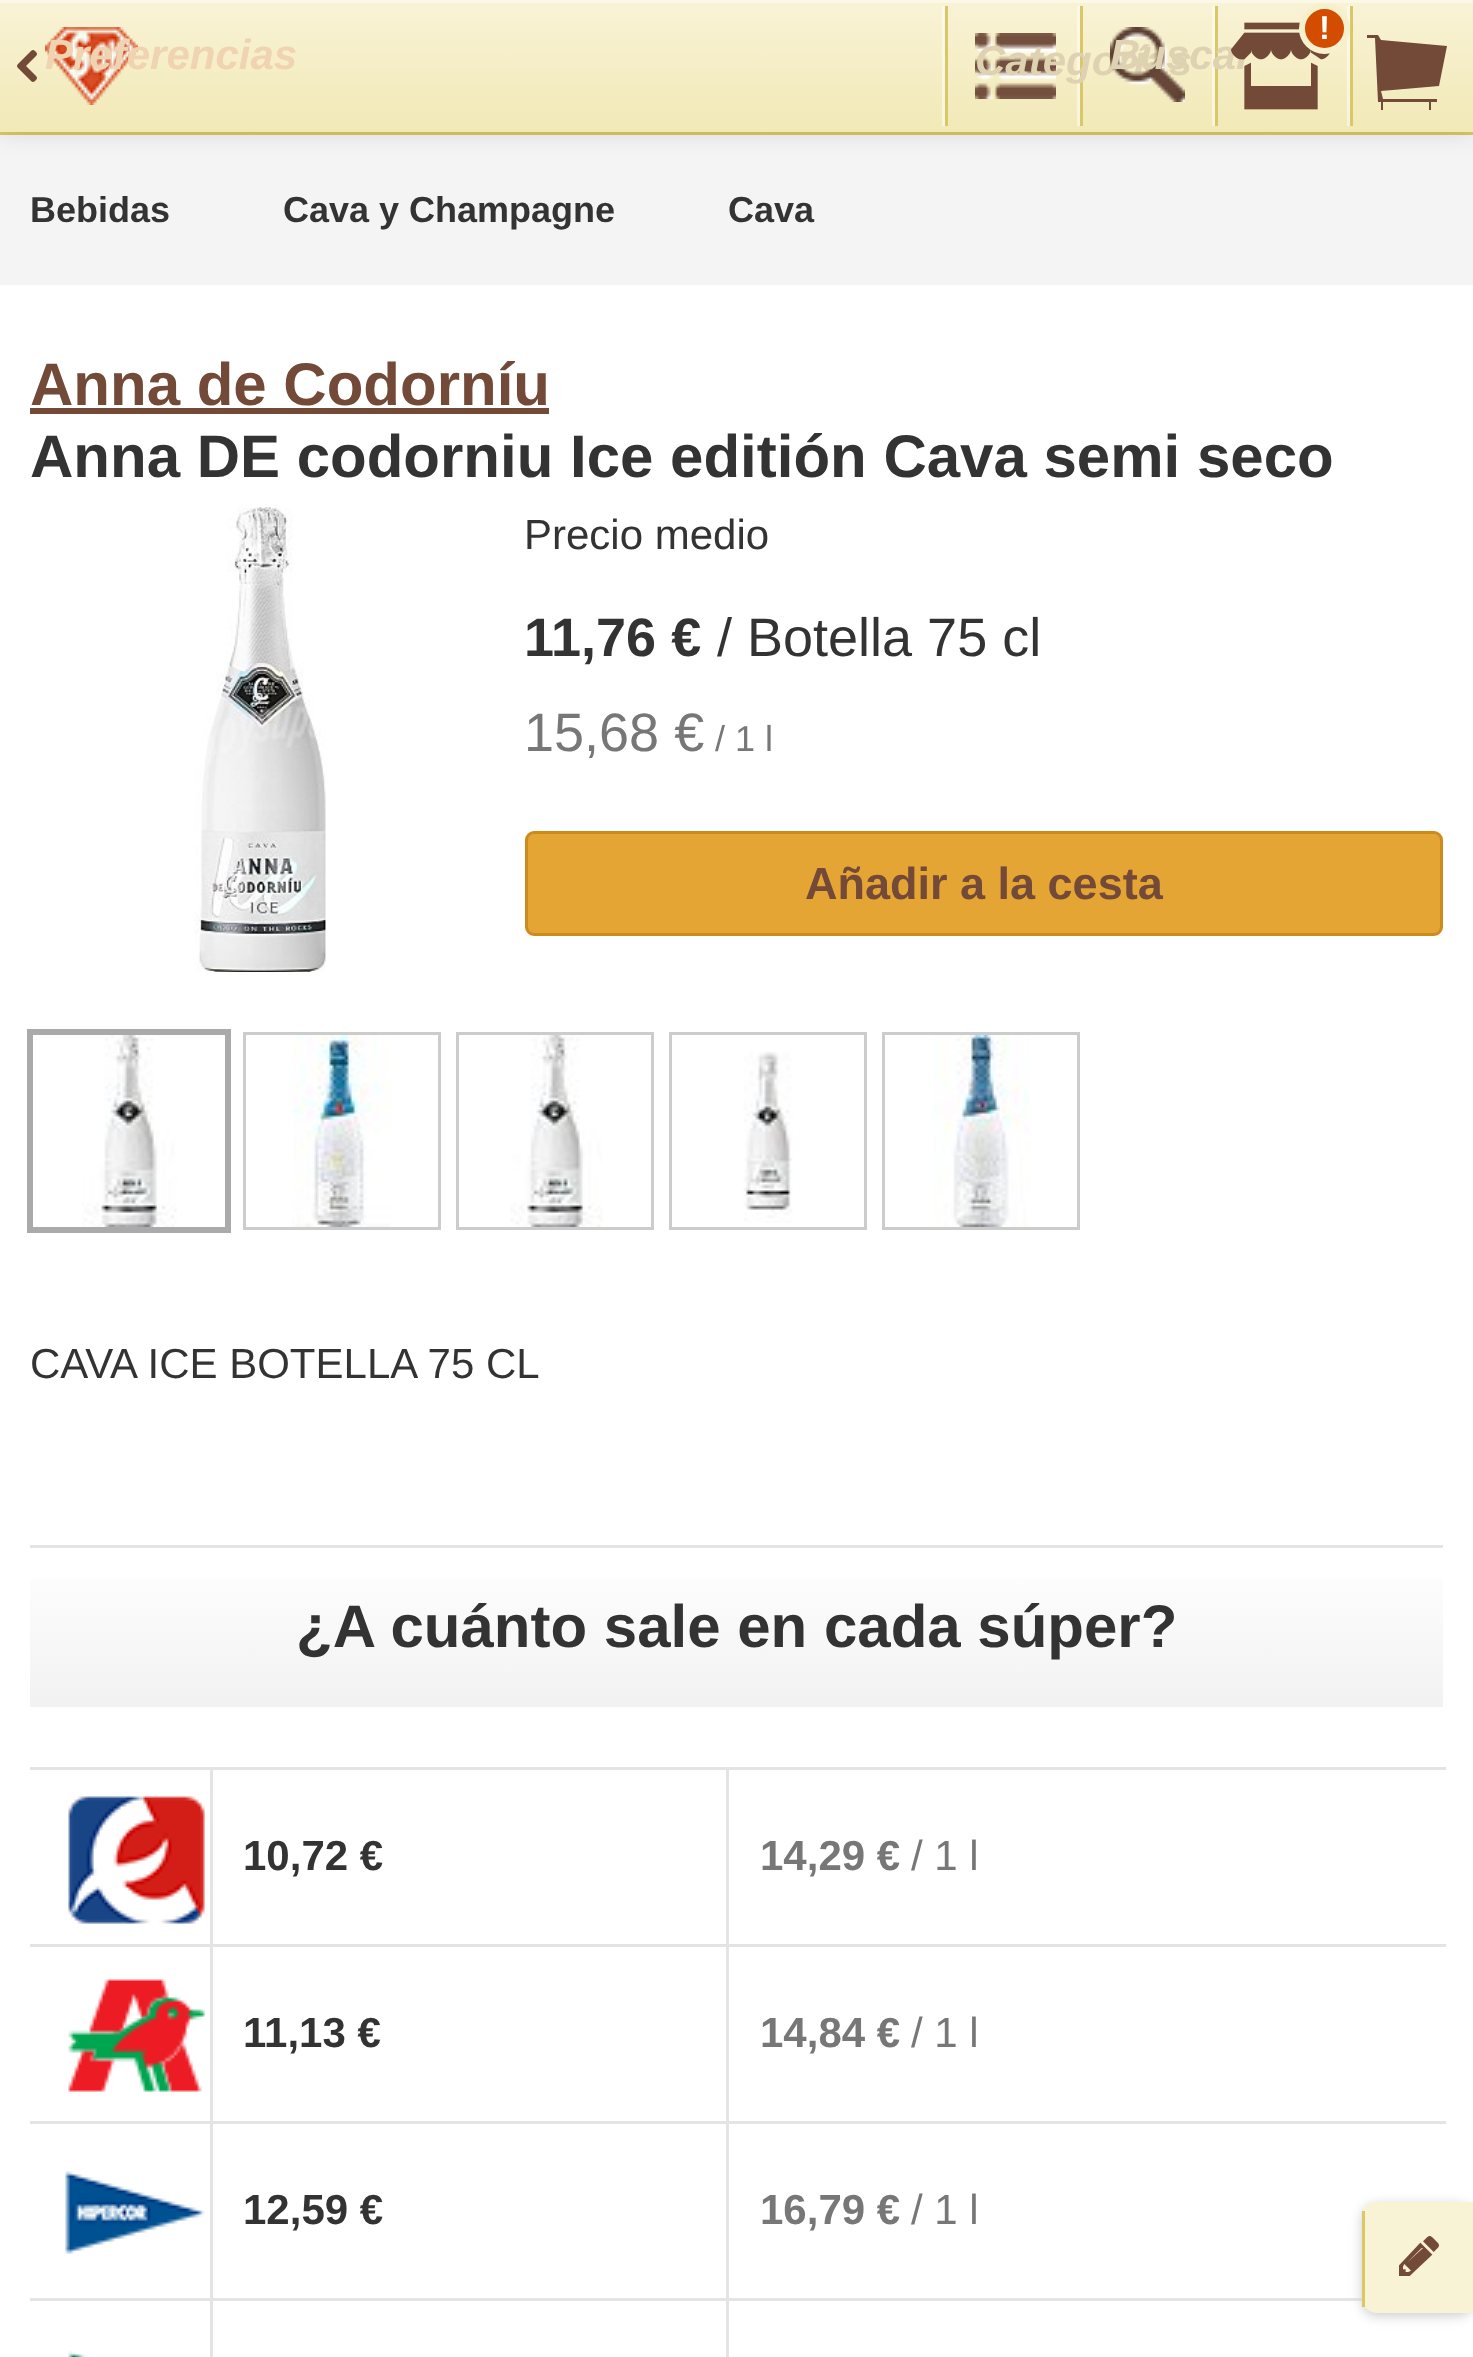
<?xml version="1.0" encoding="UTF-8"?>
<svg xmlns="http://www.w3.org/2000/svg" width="1473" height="2357">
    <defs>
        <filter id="blur1" x="-50%" y="-200%" width="200%" height="500%"><feGaussianBlur stdDeviation="10.5"/></filter>
        <linearGradient id="g1" gradientUnits="userSpaceOnUse" x1="737" y1="0" x2="737" y2="132"><stop offset="0" stop-color="#F9F3D7"/><stop offset="1" stop-color="#F1E9B6"/></linearGradient>
        <linearGradient id="g2" gradientUnits="userSpaceOnUse" x1="737" y1="0" x2="737" y2="132"><stop offset="0" stop-color="#FCF9EB"/><stop offset="1" stop-color="#F8F4DB"/></linearGradient>
        <linearGradient id="g3" gradientUnits="userSpaceOnUse" x1="737" y1="1548" x2="737" y2="1707"><stop offset="0" stop-color="#FFFFFF"/><stop offset="1" stop-color="#F2F2F2"/></linearGradient>
        <filter id="blur2" x="-50%" y="-200%" width="200%" height="500%"><feGaussianBlur stdDeviation="6"/></filter>
    </defs>
    <rect width="100%" height="100%" fill="#FFFFFF"/>
    <rect x="0" y="132" width="1473" height="3" fill="#D9C768"/>
    <rect x="0" y="135" width="1473" height="150" fill="#F4F4F4"/>
    <rect x="0" y="3" width="1473" height="132" fill="#000000" fill-opacity="0.1" filter="url(#blur1)"/>
    <rect x="0" y="3" width="1473" height="129" fill="url(#g1)"/>
    <rect x="1347" y="6" width="3" height="120" fill="url(#g2)"/>
    <rect x="1212" y="6" width="3" height="120" fill="url(#g2)"/>
    <rect x="1077" y="6" width="3" height="120" fill="url(#g2)"/>
    <rect x="942" y="6" width="3" height="120" fill="url(#g2)"/>
    <rect x="0" y="0" width="1473" height="3" fill="#FBF8E7"/>
    <image x="17" y="50" width="20" height="32" href="img_01.png"/>
    <image x="45" y="27" width="93" height="78" href="img_02.png"/>
    <text x="45" y="69" font-family="Liberation Sans" font-size="42" font-weight="700" font-style="italic" fill="#F0D3B1">Preferencias</text>
    <rect x="1215" y="6" width="3" height="120" fill="#D9C768"/>
    <rect x="1080" y="6" width="3" height="120" fill="#D9C768"/>
    <image x="975" y="33" width="81" height="66" href="img_05.png"/>
    <text x="975" y="75" font-family="Liberation Sans" font-size="42" font-weight="700" font-style="italic" fill="#DED2B2">Categorías</text>
    <image x="1110" y="27" width="75" height="75" href="img_04.png"/>
    <text x="1110" y="69" font-family="Liberation Sans" font-size="42" font-weight="700" font-style="italic" fill="#DED2B2">Buscar</text>
    <image x="1231" y="22" width="99" height="88" href="img_03.png"/>
    <circle cx="1324.5" cy="28.5" r="22.5" fill="#D44C00" stroke="#F6F0CD" stroke-width="6"/>
    <text x="1319" y="39" font-family="Liberation Sans" font-size="33" font-weight="700" fill="#FFFFFF">!</text>
    <rect x="1350" y="6" width="3" height="120" fill="#D9C768"/>
    <path d="M 1367 38 H 1375 L 1378 102 H 1381 V 110 H 1383 V 102 H 1429 V 110 H 1431 V 102 H 1437 V 99 H 1383 L 1381 91 L 1439 86 L 1447 46 L 1381 40 L 1378 35 H 1367 Z" fill="#734937"/>
    <rect x="945" y="6" width="3" height="120" fill="#D9C768"/>
    <text x="30" y="222" font-family="Liberation Sans" font-size="36" font-weight="700" fill="#333333">Bebidas</text>
    <text x="283" y="222" font-family="Liberation Sans" font-size="36" font-weight="700" fill="#333333">Cava y Champagne</text>
    <text x="728" y="222" font-family="Liberation Sans" font-size="36" font-weight="700" fill="#333333">Cava</text>
    <text x="30" y="405" font-family="Liberation Sans" font-size="60" font-weight="700" fill="#734937">Anna de Codorníu</text>
    <rect x="30" y="408" width="519" height="6" fill="#734937"/>
    <text x="30" y="477" font-family="Liberation Sans" font-size="60" font-weight="700" fill="#333333">Anna DE codorniu Ice editión Cava semi seco</text>
    <image x="194" y="507" width="132" height="465" href="img_06.png"/>
    <text x="524" y="549" font-family="Liberation Sans" font-size="42" fill="#333333">Precio medio</text>
    <text x="524" y="656" font-family="Liberation Sans" font-size="54" font-weight="700" fill="#333333">11,76 €</text>
    <text x="717" y="656" font-family="Liberation Sans" font-size="54" fill="#333333">/ Botella 75 cl</text>
    <text x="524" y="751" font-family="Liberation Sans" font-size="54" fill="#777777">15,68 €</text>
    <text x="715" y="751" font-family="Liberation Sans" font-size="36" fill="#777777">/ 1 l</text>
    <rect x="526.5" y="832.5" width="915" height="102" rx="7.5" fill="#E5A535" stroke="#CD8C1A" stroke-width="3"/>
    <text x="805" y="899" font-family="Liberation Sans" font-size="45" font-weight="700" fill="#734937">Añadir a la cesta</text>
    <rect x="28.5" y="1030.5" width="201" height="201" fill="none" stroke="#AAAAAA" stroke-width="3"/>
    <rect x="31.5" y="1033.5" width="195" height="195" fill="none" stroke="#AAAAAA" stroke-width="3"/>
    <image x="82" y="1035" width="95" height="192" href="img_07.png"/>
    <rect x="244.5" y="1033.5" width="195" height="195" fill="none" stroke="#CCCCCC" stroke-width="3"/>
    <image x="292" y="1035" width="99" height="192" href="img_08.png"/>
    <rect x="457.5" y="1033.5" width="195" height="195" fill="none" stroke="#CCCCCC" stroke-width="3"/>
    <image x="510" y="1035" width="93" height="192" href="img_09.png"/>
    <rect x="670.5" y="1033.5" width="195" height="195" fill="none" stroke="#CCCCCC" stroke-width="3"/>
    <image x="743" y="1051" width="50" height="172" href="img_10.png"/>
    <rect x="883.5" y="1033.5" width="195" height="195" fill="none" stroke="#CCCCCC" stroke-width="3"/>
    <image x="933" y="1035" width="97" height="192" href="img_11.png"/>
    <text x="30" y="1378" font-family="Liberation Sans" font-size="42" fill="#333333">CAVA ICE BOTELLA 75 CL</text>
    <rect x="30" y="1579" width="1413" height="128" fill="url(#g3)"/>
    <rect x="30" y="1545" width="1413" height="3" fill="#E4E4E4"/>
    <text x="296" y="1647" font-family="Liberation Sans" font-size="60" font-weight="700" fill="#333333">¿A cuánto sale en cada súper?</text>
    <rect x="726" y="1767" width="720" height="3" fill="#E4E4E4"/>
    <rect x="726" y="1944" width="720" height="3" fill="#E4E4E4"/>
    <rect x="726" y="2121" width="720" height="3" fill="#E4E4E4"/>
    <rect x="726" y="2298" width="636" height="3" fill="#E4E4E4"/>
    <rect x="726" y="2298" width="3" height="59" fill="#E4E4E4"/>
    <rect x="210" y="2298" width="519" height="3" fill="#E4E4E4"/>
    <rect x="726" y="2121" width="3" height="180" fill="#E4E4E4"/>
    <rect x="210" y="2121" width="519" height="3" fill="#E4E4E4"/>
    <rect x="726" y="1944" width="3" height="180" fill="#E4E4E4"/>
    <rect x="210" y="1944" width="519" height="3" fill="#E4E4E4"/>
    <rect x="726" y="1767" width="3" height="180" fill="#E4E4E4"/>
    <rect x="210" y="1767" width="519" height="3" fill="#E4E4E4"/>
    <rect x="210" y="2298" width="3" height="59" fill="#E4E4E4"/>
    <rect x="30" y="2298" width="183" height="3" fill="#E4E4E4"/>
    <rect x="210" y="2121" width="3" height="180" fill="#E4E4E4"/>
    <rect x="30" y="2121" width="183" height="3" fill="#E4E4E4"/>
    <rect x="210" y="1944" width="3" height="180" fill="#E4E4E4"/>
    <rect x="30" y="1944" width="183" height="3" fill="#E4E4E4"/>
    <rect x="210" y="1767" width="3" height="180" fill="#E4E4E4"/>
    <rect x="30" y="1767" width="183" height="3" fill="#E4E4E4"/>
    <image x="68" y="1796" width="137" height="128" href="img_12.png"/>
    <text x="243" y="1870" font-family="Liberation Sans" font-size="42" font-weight="700" fill="#333333">10,72 €</text>
    <text x="760" y="1870" font-family="Liberation Sans" font-size="42" font-weight="700" fill="#777777">14,29 €</text>
    <text x="911" y="1870" font-family="Liberation Sans" font-size="42" fill="#777777">/ 1 l</text>
    <image x="68" y="1979" width="137" height="113" href="img_13.png"/>
    <text x="243" y="2047" font-family="Liberation Sans" font-size="42" font-weight="700" fill="#333333">11,13 €</text>
    <text x="760" y="2047" font-family="Liberation Sans" font-size="42" font-weight="700" fill="#777777">14,84 €</text>
    <text x="911" y="2047" font-family="Liberation Sans" font-size="42" fill="#777777">/ 1 l</text>
    <image x="65" y="2171" width="140" height="83" href="img_14.png"/>
    <text x="243" y="2224" font-family="Liberation Sans" font-size="42" font-weight="700" fill="#333333">12,59 €</text>
    <text x="760" y="2224" font-family="Liberation Sans" font-size="42" font-weight="700" fill="#777777">16,79 €</text>
    <text x="911" y="2224" font-family="Liberation Sans" font-size="42" fill="#777777">/ 1 l</text>
    <image x="68" y="2351" width="17" height="6" href="img_15.png"/>
    <rect x="1362" y="2205" width="111" height="111" rx="15" fill="#CCCCCC" filter="url(#blur2)"/>
    <path d="M 1377 2202 H 1473 V 2313 H 1377 C 1368.5 2313 1362 2306.5 1362 2298 V 2217 C 1362 2208.5 1368.5 2202 1377 2202 Z" fill="#F8F3D5"/>
    <rect x="1362" y="2211" width="3" height="96" fill="#D9C768"/>
    <image x="1399" y="2236" width="40" height="40" href="img_16.png"/>
</svg>
